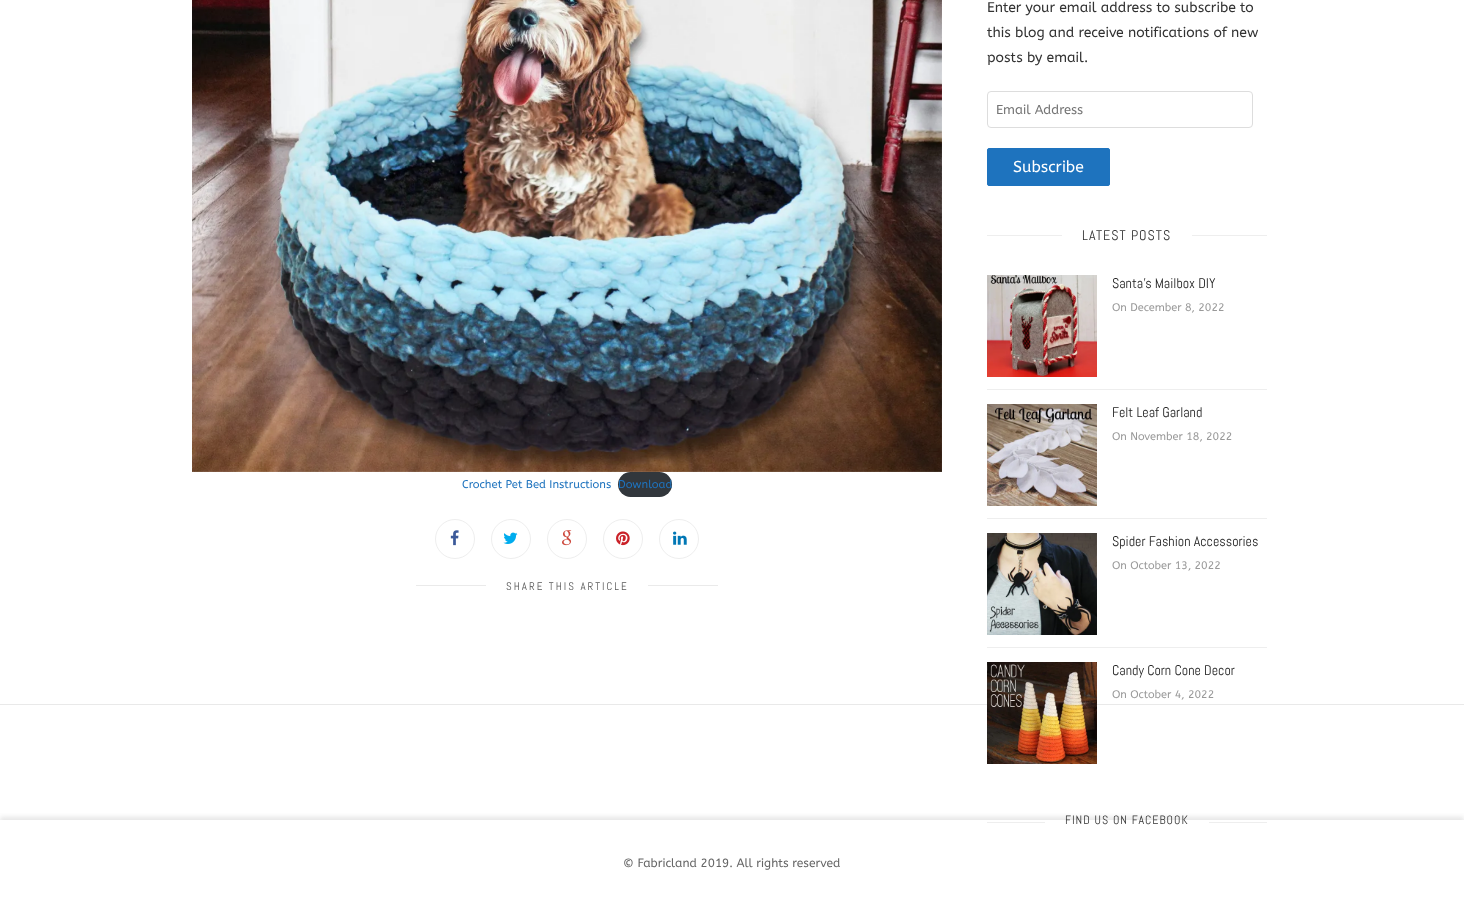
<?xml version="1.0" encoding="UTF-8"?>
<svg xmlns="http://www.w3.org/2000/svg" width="1464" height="907">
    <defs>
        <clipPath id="clip1"><rect x="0" y="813" width="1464" height="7"/></clipPath>
        <filter id="blur1" x="-50%" y="-200%" width="200%" height="500%"><feGaussianBlur stdDeviation="2.5"/></filter>
    </defs>
    <rect width="100%" height="100%" fill="#FFFFFF"/>
    <image x="192" y="0" width="750" height="472" href="img_01.png"/>
    <text x="462" y="488" font-family="ABeeZee" font-size="11.25" fill="#1E73BE">Crochet Pet Bed Instructions</text>
    <rect x="618" y="472" width="54" height="25" rx="12.5" fill="#32373C"/>
    <text x="618" y="488" font-family="ABeeZee" font-size="11.25" fill="#1E73BE">Download</text>
    <circle cx="455" cy="539" r="19.5" fill="none" stroke="#EEEEEE"/>
    <image x="450" y="530" width="9" height="16" href="img_02.png"/>
    <circle cx="511" cy="539" r="19.5" fill="none" stroke="#EEEEEE"/>
    <image x="503" y="532" width="15" height="12" href="img_03.png"/>
    <circle cx="567" cy="539" r="19.5" fill="none" stroke="#EEEEEE"/>
    <image x="562" y="530" width="10" height="16" href="img_04.png"/>
    <circle cx="623" cy="539" r="19.5" fill="none" stroke="#EEEEEE"/>
    <image x="616" y="531" width="14" height="15" href="img_05.png"/>
    <circle cx="679" cy="539" r="19.5" fill="none" stroke="#EEEEEE"/>
    <image x="673" y="531" width="14" height="14" href="img_06.png"/>
    <rect x="416" y="585" width="70" height="1" fill="#EAEAEA"/>
    <text x="506" y="590" font-family="Abel" font-size="11" letter-spacing="2" fill="#5A5A5A">SHARE THIS ARTICLE</text>
    <rect x="648" y="585" width="70" height="1" fill="#EAEAEA"/>
    <text font-family="ABeeZee" font-size="14" fill="#333333">
        <tspan x="987" y="12">Enter your email address to subscribe to</tspan>
        <tspan x="987" y="37">this blog and receive notifications of new</tspan>
        <tspan x="987" y="62">posts by email.</tspan>
    </text>
    <rect x="987.5" y="91.5" width="265" height="36" rx="3.5" fill="none" stroke="#DDDDDD"/>
    <text x="996" y="114" font-family="ABeeZee" font-size="13" fill="#757575">Email Address</text>
    <rect x="987.5" y="148.5" width="122" height="37" rx="1.5" fill="#1E73BE" stroke="#1E73BE"/>
    <text x="1013" y="172" font-family="ABeeZee" font-size="15.75" fill="#FFFFFF">Subscribe</text>
    <rect x="987" y="235" width="75" height="1" fill="#EEEEEE"/>
    <text x="1082" y="240" font-family="Abel" font-size="14" letter-spacing="1" fill="#333333">LATEST POSTS</text>
    <rect x="1192" y="235" width="75" height="1" fill="#EEEEEE"/>
    <rect x="987" y="389" width="280" height="1" fill="#EEEEEE"/>
    <image x="987" y="275" width="110" height="102" href="img_07.png"/>
    <text x="1112" y="288" font-family="Abel" font-size="14" fill="#222222">Santa’s Mailbox DIY</text>
    <text x="1112" y="311" font-family="ABeeZee" font-size="11" fill="#999999">On December 8, 2022</text>
    <rect x="987" y="518" width="280" height="1" fill="#EEEEEE"/>
    <image x="987" y="404" width="110" height="102" href="img_08.png"/>
    <text x="1112" y="417" font-family="Abel" font-size="14" fill="#222222">Felt Leaf Garland</text>
    <text x="1112" y="440" font-family="ABeeZee" font-size="11" fill="#999999">On November 18, 2022</text>
    <rect x="987" y="647" width="280" height="1" fill="#EEEEEE"/>
    <image x="987" y="533" width="110" height="102" href="img_09.png"/>
    <text x="1112" y="546" font-family="Abel" font-size="14" fill="#222222">Spider Fashion Accessories</text>
    <text x="1112" y="569" font-family="ABeeZee" font-size="11" fill="#999999">On October 13, 2022</text>
    <rect x="0" y="704" width="1464" height="1" fill="#E9E9E9"/>
    <image x="987" y="662" width="110" height="102" href="img_10.png"/>
    <text x="1112" y="675" font-family="Abel" font-size="14" fill="#222222">Candy Corn Cone Decor</text>
    <text x="1112" y="698" font-family="ABeeZee" font-size="11" fill="#999999">On October 4, 2022</text>
    <g clip-path="url(#clip1)">
        <rect x="0" y="817" width="1464" height="87" fill="#BEBEBE" fill-opacity="0.4" filter="url(#blur1)"/>
    </g>
    <rect x="987" y="822" width="58" height="1" fill="#EEEEEE"/>
    <text x="1065" y="824" font-family="Abel" font-size="12" letter-spacing="1" fill="#333333">FIND US ON FACEBOOK</text>
    <rect x="1209" y="822" width="58" height="1" fill="#EEEEEE"/>
    <text x="623" y="867" font-family="ABeeZee" font-size="12" fill="#666666">© Fabricland 2019. All rights reserved</text>
</svg>
